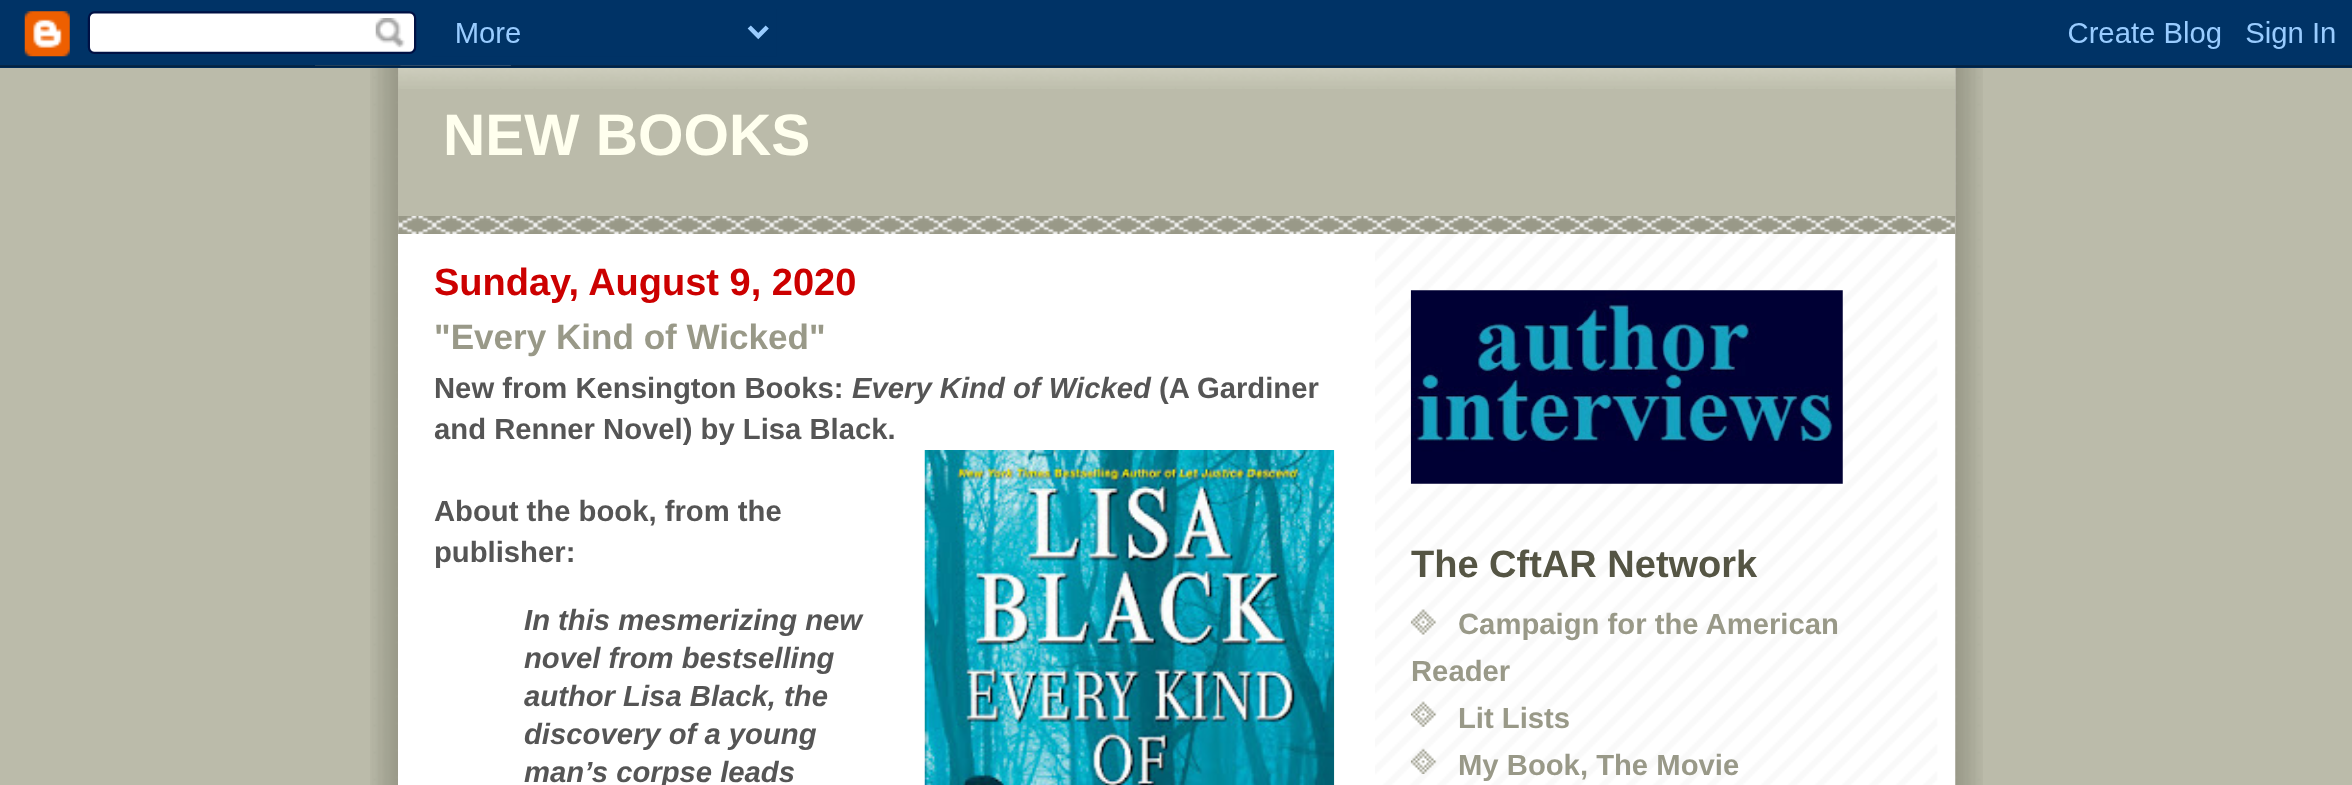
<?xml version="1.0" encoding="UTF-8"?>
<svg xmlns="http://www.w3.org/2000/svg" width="2352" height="785">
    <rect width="100%" height="100%" fill="#BBBBAA"/>
    <image x="370" y="65" width="1613" height="720" href="img_01.png"/>
    <image x="0" y="0" width="2352" height="68" href="img_02.png"/>
    <rect x="398" y="234" width="977" height="551" fill="#FFFFFF"/>
    <image x="1375" y="68" width="581" height="717" href="img_03.png"/>
    <rect x="398" y="68" width="1557" height="166" fill="#BBBBAA"/>
    <image x="398" y="216" width="1558" height="18" href="img_04.png"/>
    <image x="398" y="68" width="1558" height="21" href="img_05.png"/>
    <text x="443" y="155" font-family="Liberation Sans" font-size="58.5" font-weight="700" fill="#FFFFEE">NEW BOOKS</text>
    <text x="434" y="295" font-family="Liberation Sans" font-size="38" font-weight="700" fill="#CC0000">Sunday, August 9, 2020</text>
    <text x="434" y="349" font-family="Liberation Sans" font-size="35.1" font-weight="700" fill="#999988">"Every Kind of Wicked"</text>
    <text x="434" y="398" font-family="Liberation Sans" font-size="29.25" font-weight="700" fill="#555555">New from Kensington Books:</text>
    <text x="852" y="398" font-family="Liberation Sans" font-size="29.25" font-weight="700" font-style="italic" fill="#555555">Every Kind of Wicked</text>
    <text x="1159" y="398" font-family="Liberation Sans" font-size="29.25" font-weight="700" fill="#555555">(A Gardiner</text>
    <text x="434" y="439" font-family="Liberation Sans" font-size="29.25" font-weight="700" fill="#555555">and Renner Novel) by Lisa Black.</text>
    <text x="434" y="521" font-family="Liberation Sans" font-size="29.25" font-weight="700" fill="#555555">About the book, from the</text>
    <image x="924" y="450" width="411" height="335" href="img_06.png"/>
    <text x="434" y="562" font-family="Liberation Sans" font-size="29.25" font-weight="700" fill="#555555">publisher:</text>
    <text font-family="Liberation Sans" font-size="29.25" font-weight="700" font-style="italic" fill="#555555">
        <tspan x="524" y="630">In this mesmerizing new</tspan>
        <tspan x="524" y="668">novel from bestselling</tspan>
        <tspan x="524" y="706">author Lisa Black, the</tspan>
        <tspan x="524" y="744">discovery of a young</tspan>
        <tspan x="524" y="782">man’s corpse leads</tspan>
    </text>
    <image x="1410" y="290" width="433" height="194" href="img_07.png"/>
    <text x="1411" y="577" font-family="Liberation Sans" font-size="38" font-weight="700" fill="#555544">The CftAR Network</text>
    <image x="1410" y="609" width="27" height="26" href="img_08.png"/>
    <text x="1458" y="634" font-family="Liberation Sans" font-size="29.25" font-weight="700" fill="#999988">Campaign for the American</text>
    <text x="1411" y="681" font-family="Liberation Sans" font-size="29.25" font-weight="700" fill="#999988">Reader</text>
    <image x="1410" y="701" width="27" height="26" href="img_09.png"/>
    <text x="1458" y="728" font-family="Liberation Sans" font-size="29.25" font-weight="700" fill="#999988">Lit Lists</text>
    <image x="1410" y="748" width="27" height="26" href="img_10.png"/>
    <text x="1458" y="775" font-family="Liberation Sans" font-size="29.25" font-weight="700" fill="#999988">My Book, The Movie</text>
</svg>
